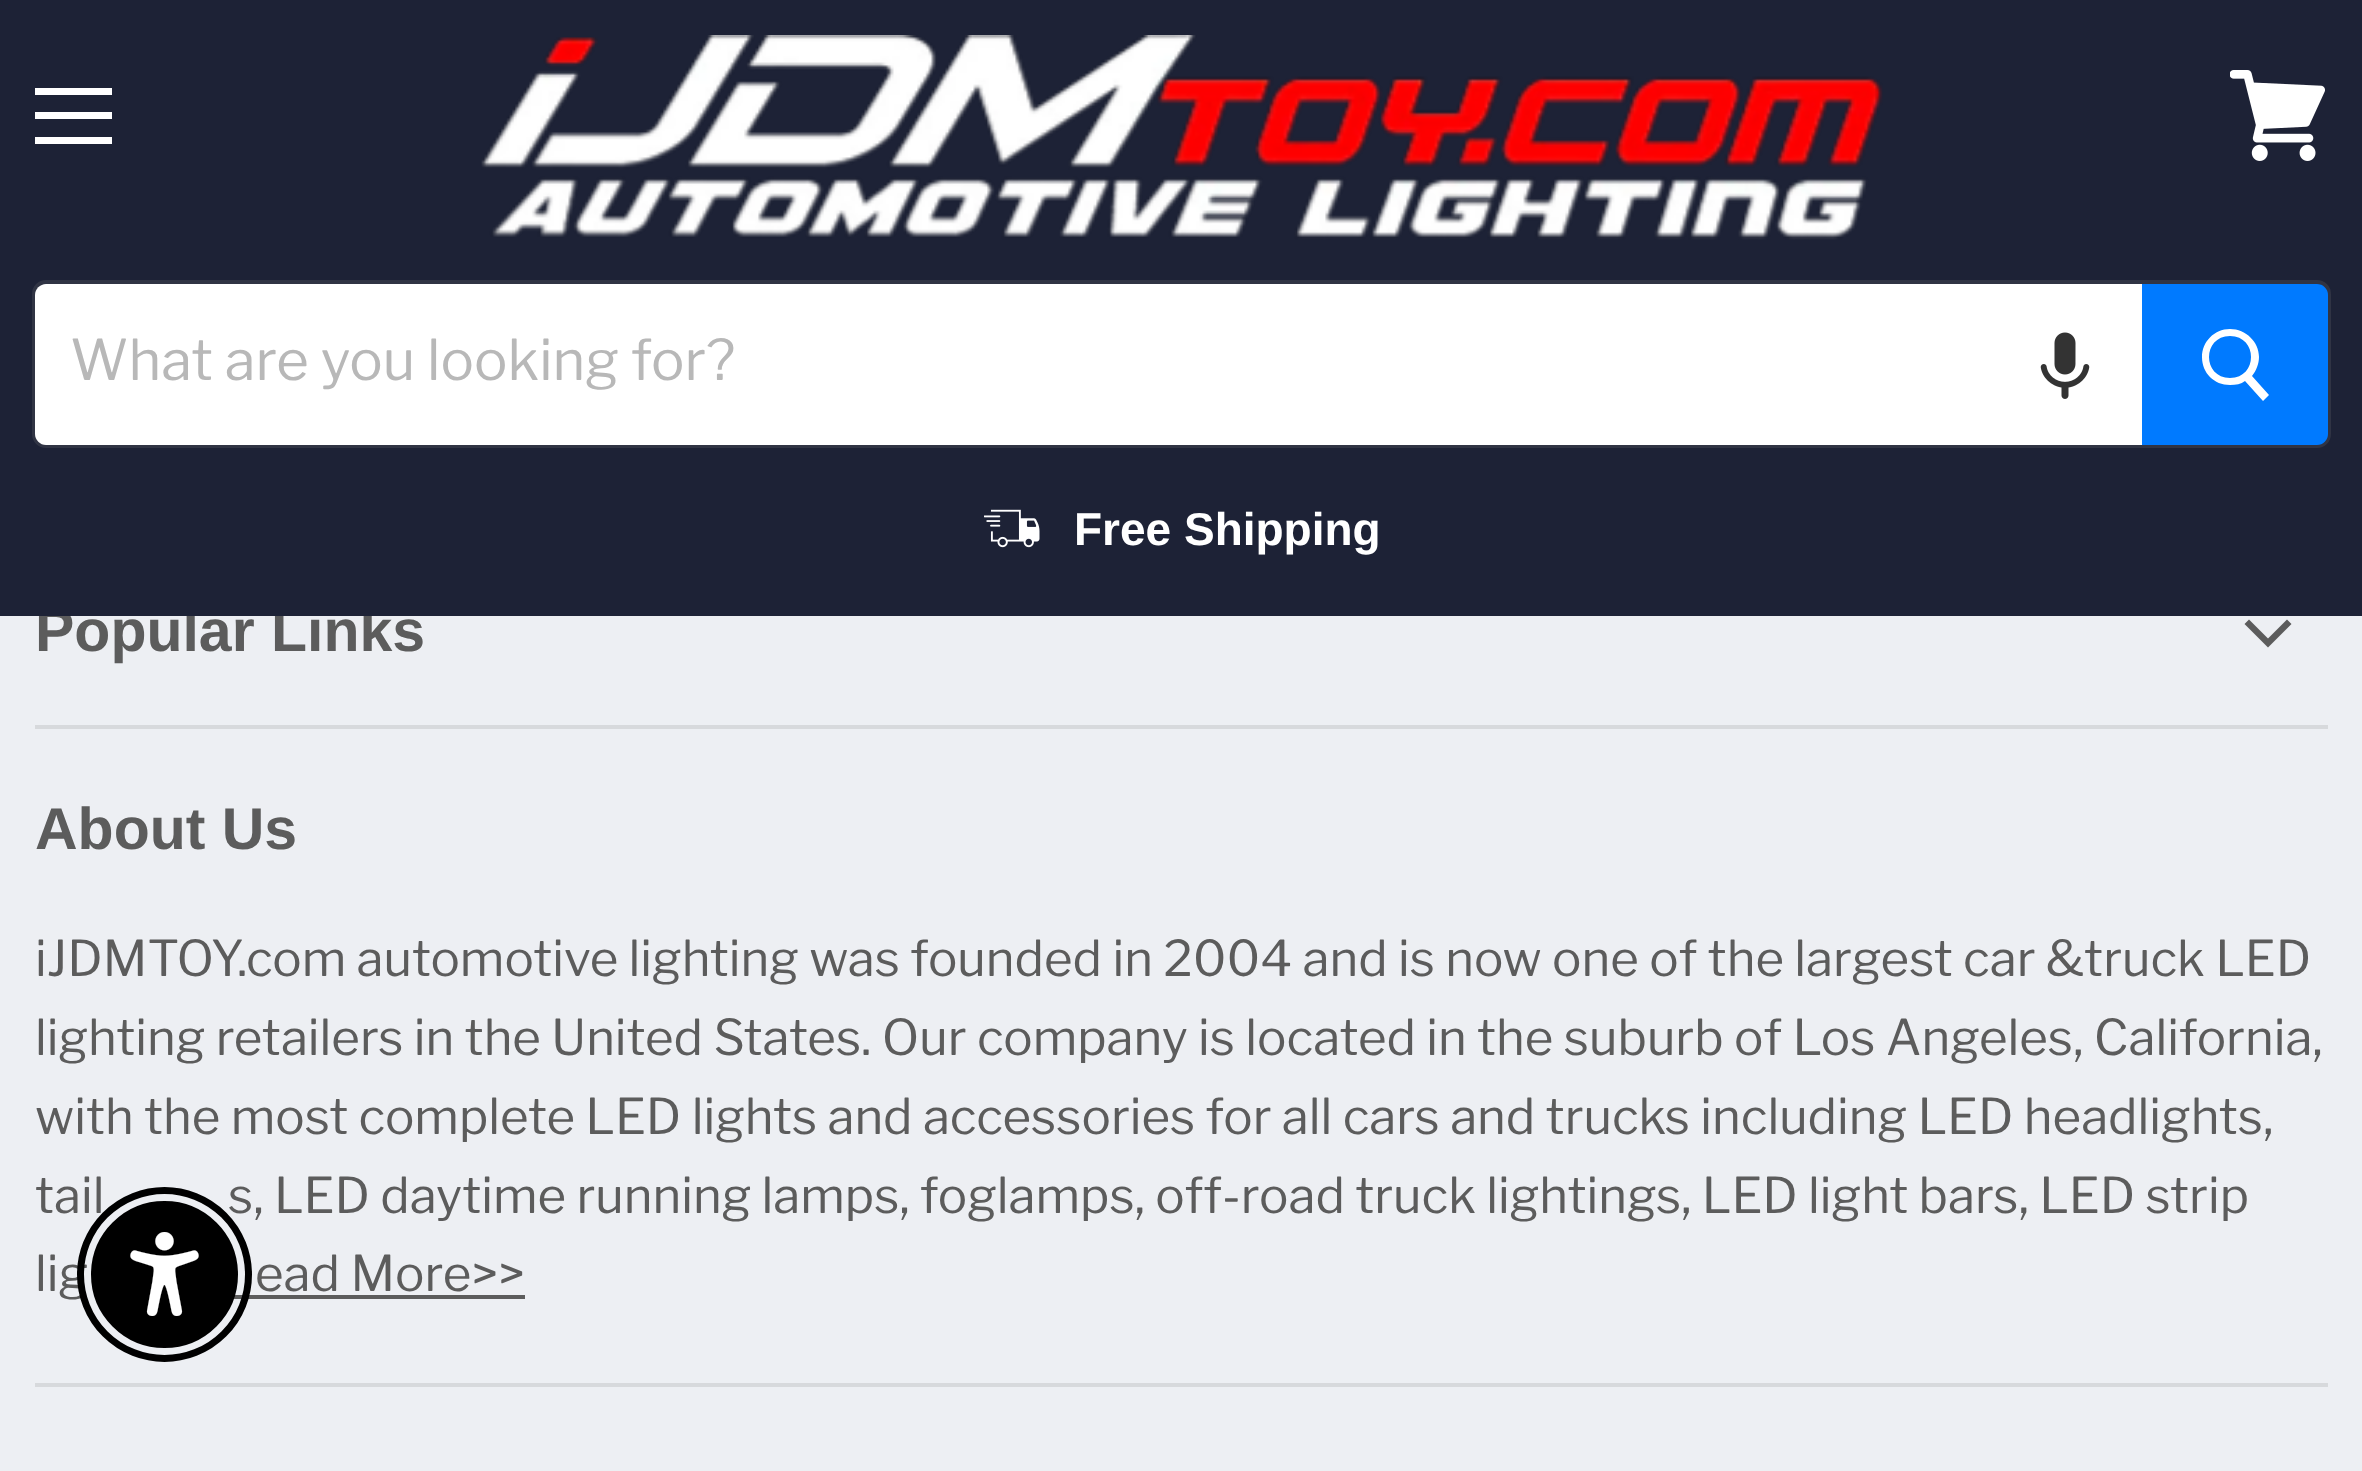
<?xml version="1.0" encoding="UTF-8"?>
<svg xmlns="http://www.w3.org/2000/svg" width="2362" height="1471">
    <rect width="100%" height="100%" fill="#EDEFF3"/>
    <text x="35" y="651" font-family="Arimo" font-size="59" font-weight="700" fill="#5C5C5C">Popular Links</text>
    <rect x="0" y="0" width="2362" height="616" fill="#1D2236"/>
    <rect x="35" y="88" width="77" height="7" fill="#FFFFFF"/>
    <rect x="35" y="112" width="77" height="7" fill="#FFFFFF"/>
    <rect x="35" y="137" width="77" height="7" fill="#FFFFFF"/>
    <image x="2230" y="70" width="95" height="91" href="img_01.png"/>
    <image x="481" y="35" width="1402" height="205" href="img_02.png"/>
    <rect x="34" y="282" width="2295" height="164" rx="12" fill="none" stroke="#7F7F7F" stroke-opacity="0.2" stroke-width="4"/>
    <path d="M 46 284 H 2142 V 445 H 46 C 40 445 35 440 35 434 V 295 C 35 289 40 284 46 284 Z" fill="#FFFFFF"/>
    <text x="70" y="380" font-family="Libre Franklin" font-size="56" fill="#B8B8B8">What are you looking for?</text>
    <image x="2040" y="332" width="50" height="67" href="img_03.png"/>
    <path d="M 2144 286 H 2317 C 2322 286 2326 290 2326 295 V 434 C 2326 439 2322 443 2317 443 H 2144 Z" fill="#007AFF" stroke="#007AFF" stroke-width="4"/>
    <path d="M 2245 381 C 2241 384 2236 385 2230 385 C 2214 385 2202 373 2202 357 C 2202 342 2214 329 2230 329 C 2246 329 2259 342 2259 357 C 2259 364 2256 371 2252 376 L 2269 395 L 2263 401 Z M 2230 378 C 2258 378 2258 336 2230 336 C 2202 336 2202 378 2230 378 Z" fill="#FFFFFF" fill-rule="evenodd"/>
    <image x="984" y="509" width="56" height="39" href="img_04.png"/>
    <text x="1074" y="545" font-family="Arimo" font-size="46" font-weight="700" fill="#FFFFFF">Free Shipping</text>
    <rect x="35" y="725" width="2293" height="4" fill="#D7D9DC"/>
    <path d="M 2268 647.5 L 2291.5 624 L 2287 619.5 L 2268 638.5 Z M 2268 638.5 L 2249 619.5 L 2244.5 624 L 2268 647.5 Z" fill="#5C5C5C" fill-rule="evenodd"/>
    <rect x="35" y="1383" width="2293" height="4" fill="#D7D9DC"/>
    <text x="35" y="849" font-family="Arimo" font-size="59" font-weight="700" fill="#5C5C5C">About Us</text>
    <text font-family="Libre Franklin" font-size="49.2" fill="#5C5C5C">
        <tspan x="35" y="976" word-spacing="-0.2">iJDMTOY.com automotive lighting was founded in 2004 and is now one of the largest car &amp;truck LED</tspan>
        <tspan x="35" y="1055" word-spacing="-0.2">lighting retailers in the United States. Our company is located in the suburb of Los Angeles, California,</tspan>
        <tspan x="35" y="1134" word-spacing="-0.2">with the most complete LED lights and accessories for all cars and trucks including LED headlights,</tspan>
        <tspan x="35" y="1213" word-spacing="-0.25">tail</tspan>
    </text>
    <text x="228" y="1213" word-spacing="-0.25" font-family="Libre Franklin" font-size="49.2" fill="#5C5C5C">s, LED daytime running lamps, foglamps, off-road truck lightings, LED light bars, LED strip</text>
    <text x="35" y="1291" font-family="Libre Franklin" font-size="49.2" fill="#5C5C5C">lig</text>
    <text x="255" y="1291" font-family="Libre Franklin" font-size="49.2" fill="#5C5C5C">ead More&gt;&gt;</text>
    <rect x="233" y="1295" width="292" height="4" fill="#5C5C5C"/>
    <circle cx="164.5" cy="1274.5" r="84" fill="none" stroke="#000000" stroke-width="7"/>
    <circle cx="164.5" cy="1274.5" r="71.5" fill="#000000" stroke="#000000" stroke-width="4"/>
    <image x="130" y="1232" width="69" height="84" href="img_05.png"/>
</svg>
